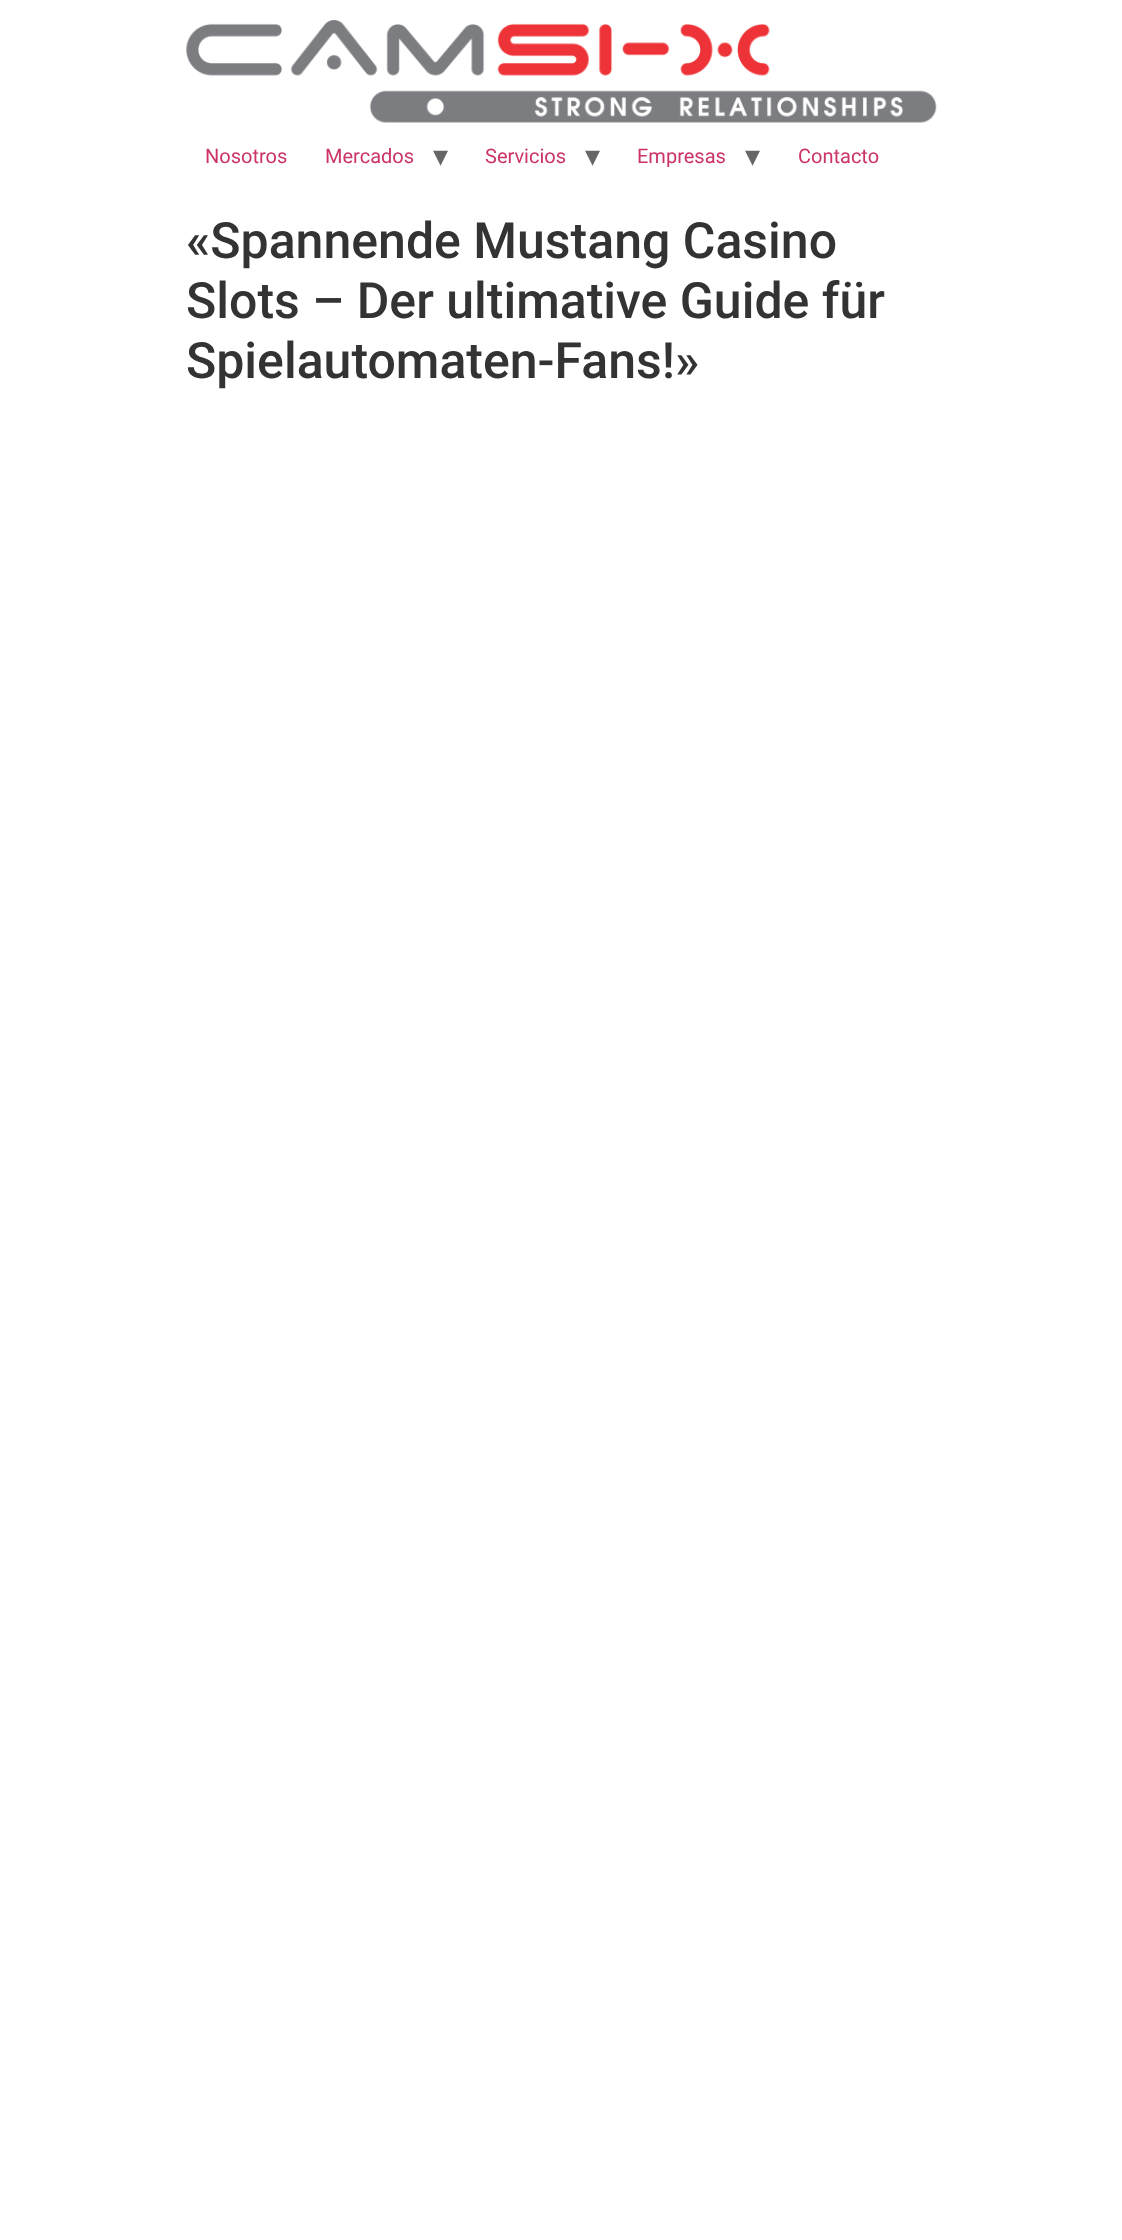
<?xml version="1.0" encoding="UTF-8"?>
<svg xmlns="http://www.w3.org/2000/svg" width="1122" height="2240">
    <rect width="100%" height="100%" fill="#FFFFFF"/>
    <image x="186" y="20" width="751" height="103" href="img_01.png"/>
    <text x="205" y="163" font-family="Roboto" font-size="20" fill="#CC3366">Nosotros</text>
    <text x="325" y="163" font-family="Roboto" font-size="20" fill="#CC3366">Mercados</text>
    <text x="433" y="166" font-family="DejaVu Sans" font-size="30" fill="#666666">▾</text>
    <text x="485" y="163" font-family="Roboto" font-size="20" fill="#CC3366">Servicios</text>
    <text x="585" y="166" font-family="DejaVu Sans" font-size="30" fill="#666666">▾</text>
    <text x="637" y="163" font-family="Roboto" font-size="20" fill="#CC3366">Empresas</text>
    <text x="745" y="166" font-family="DejaVu Sans" font-size="30" fill="#666666">▾</text>
    <text x="798" y="163" font-family="Roboto" font-size="20" fill="#CC3366">Contacto</text>
    <text font-family="Roboto" font-size="50" font-weight="500" fill="#333333">
        <tspan x="186" y="258">«Spannende Mustang Casino</tspan>
        <tspan x="186" y="318">Slots – Der ultimative Guide für</tspan>
        <tspan x="186" y="378">Spielautomaten-Fans!»</tspan>
    </text>
</svg>
